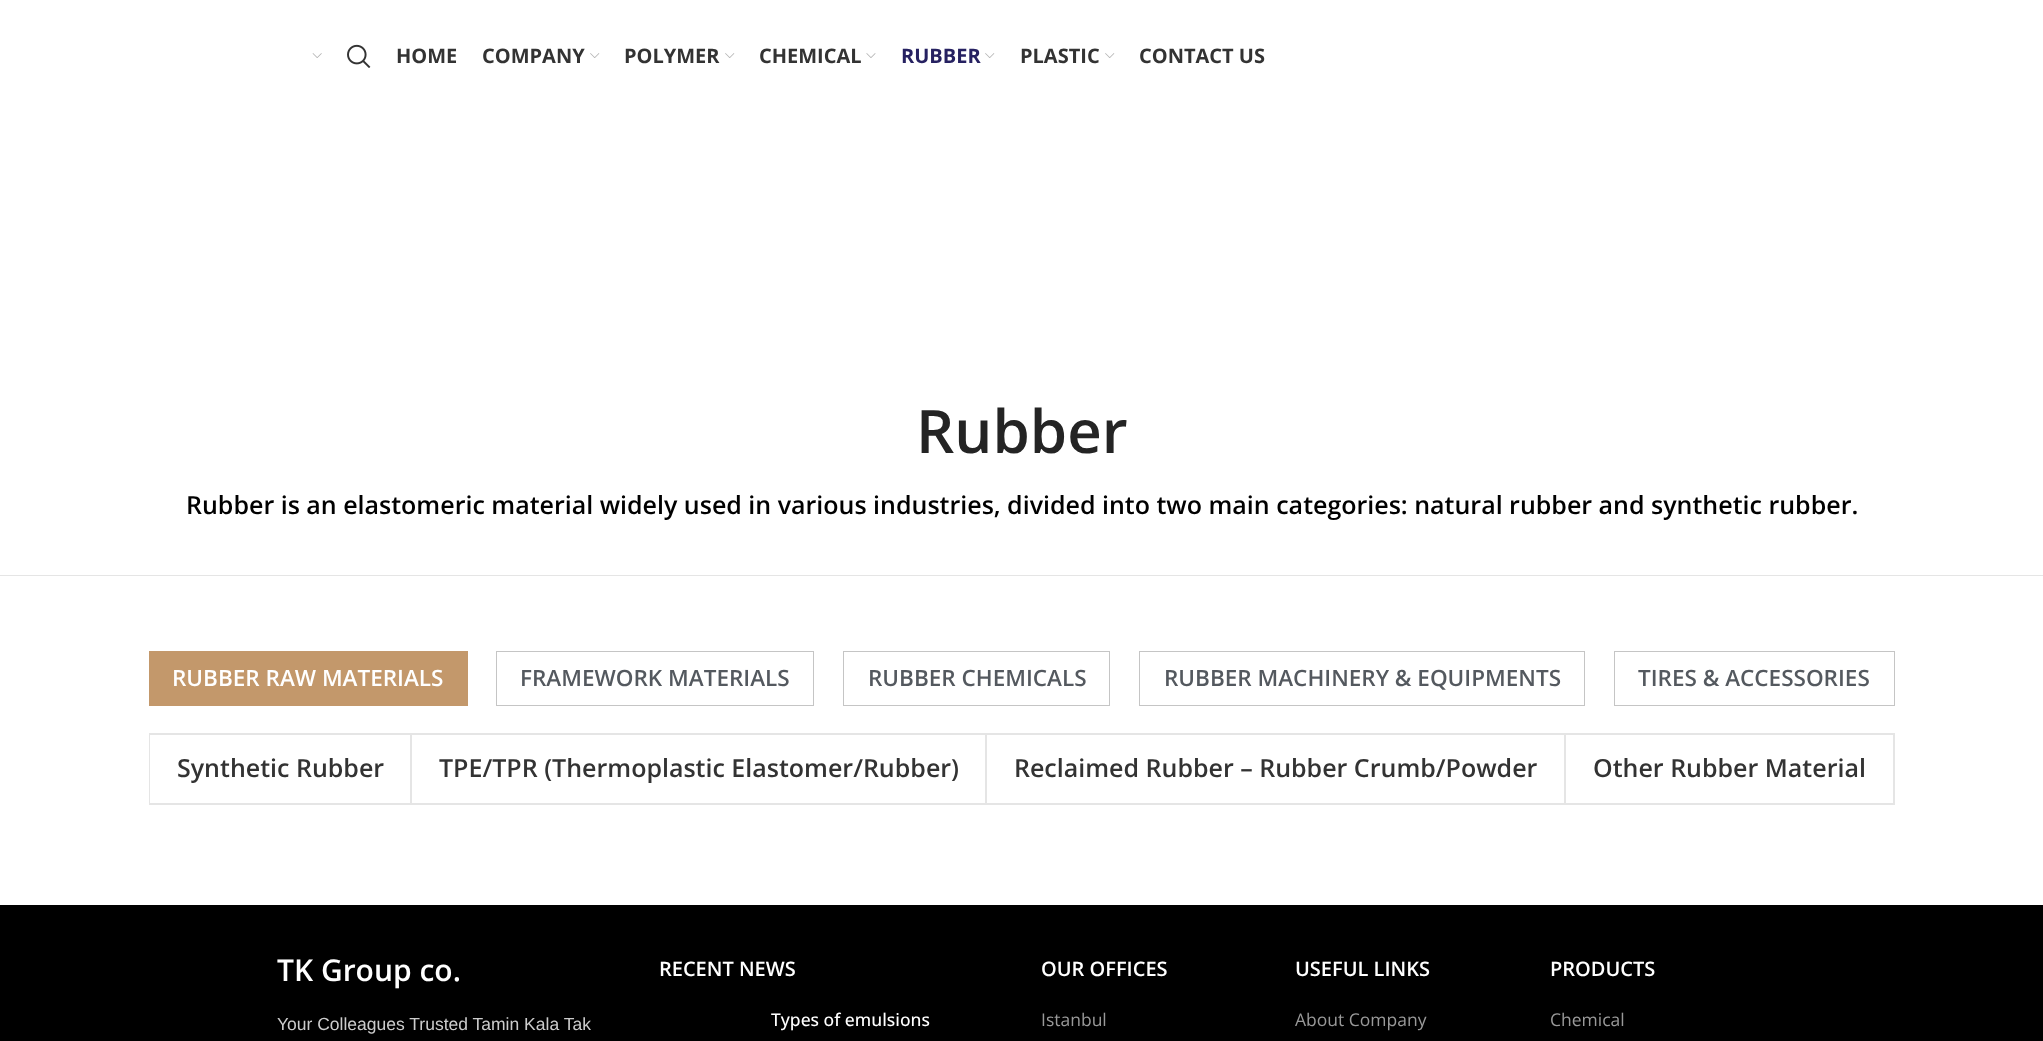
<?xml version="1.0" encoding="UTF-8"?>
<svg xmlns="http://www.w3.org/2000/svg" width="2043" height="1041">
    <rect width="100%" height="100%" fill="#FFFFFF"/>
    <image x="312" y="53" width="10" height="5" href="img_01.png"/>
    <image x="347" y="44" width="24" height="24" href="img_02.png"/>
    <text x="396" y="63" font-family="Open Sans" font-size="20" font-weight="700" fill="#333333">HOME</text>
    <text x="482" y="63" font-family="Open Sans" font-size="20" font-weight="700" fill="#333333">COMPANY</text>
    <image x="590" y="53" width="10" height="5" href="img_03.png"/>
    <text x="624" y="63" font-family="Open Sans" font-size="20" font-weight="700" fill="#333333">POLYMER</text>
    <image x="725" y="53" width="10" height="5" href="img_03.png"/>
    <text x="759" y="63" font-family="Open Sans" font-size="20" font-weight="700" fill="#333333">CHEMICAL</text>
    <image x="866" y="53" width="10" height="5" href="img_04.png"/>
    <text x="901" y="63" font-family="Open Sans" font-size="20" font-weight="700" fill="#262161">RUBBER</text>
    <image x="985" y="53" width="10" height="5" href="img_03.png"/>
    <text x="1020" y="63" font-family="Open Sans" font-size="20" font-weight="700" fill="#333333">PLASTIC</text>
    <image x="1105" y="53" width="10" height="5" href="img_03.png"/>
    <text x="1139" y="63" font-family="Open Sans" font-size="20" font-weight="700" fill="#333333">CONTACT US</text>
    <rect x="0" y="575" width="2043" height="1" fill="#E5E5E5"/>
    <text x="916" y="453" font-family="Open Sans" font-size="60" font-weight="600" fill="#242424">Rubber</text>
    <text x="186" y="514" font-family="Open Sans" font-size="25" font-weight="600" fill="#000000">Rubber is an elastomeric material widely used in various industries, divided into two main categories: natural rubber and synthetic rubber.</text>
    <rect x="149" y="651" width="319" height="55" fill="#C3986B"/>
    <text x="172" y="686" font-family="Open Sans" font-size="22.5" font-weight="600" fill="#FFFFFF">RUBBER RAW MATERIALS</text>
    <rect x="496.5" y="651.5" width="317" height="54" fill="none" stroke="#C5C5C5"/>
    <text x="520" y="686" font-family="Open Sans" font-size="22.5" font-weight="600" fill="#54595F">FRAMEWORK MATERIALS</text>
    <rect x="843.5" y="651.5" width="266" height="54" fill="none" stroke="#C5C5C5"/>
    <text x="868" y="686" font-family="Open Sans" font-size="22.5" font-weight="600" fill="#54595F">RUBBER CHEMICALS</text>
    <rect x="1139.5" y="651.5" width="445" height="54" fill="none" stroke="#C5C5C5"/>
    <text x="1164" y="686" font-family="Open Sans" font-size="22.5" font-weight="600" fill="#54595F">RUBBER MACHINERY &amp; EQUIPMENTS</text>
    <rect x="1614.5" y="651.5" width="280" height="54" fill="none" stroke="#C5C5C5"/>
    <text x="1638" y="686" font-family="Open Sans" font-size="22.5" font-weight="600" fill="#54595F">TIRES &amp; ACCESSORIES</text>
    <rect x="149" y="733" width="1746" height="1" fill="#E5E5E5"/>
    <rect x="1894" y="733" width="1" height="72" fill="#E5E5E5"/>
    <rect x="149" y="804" width="1746" height="1" fill="#E5E5E5"/>
    <rect x="149.5" y="734.5" width="261" height="69" fill="none" stroke="#E5E5E5"/>
    <text x="177" y="777" font-family="Open Sans" font-size="25" font-weight="600" fill="#333333">Synthetic Rubber</text>
    <rect x="411.5" y="734.5" width="574" height="69" fill="none" stroke="#E5E5E5"/>
    <text x="439" y="777" font-family="Open Sans" font-size="25" font-weight="600" fill="#333333">TPE/TPR (Thermoplastic Elastomer/Rubber)</text>
    <rect x="986.5" y="734.5" width="578" height="69" fill="none" stroke="#E5E5E5"/>
    <text x="1014" y="777" font-family="Open Sans" font-size="25" font-weight="600" fill="#333333">Reclaimed Rubber – Rubber Crumb/Powder</text>
    <rect x="1565.5" y="734.5" width="328" height="69" fill="none" stroke="#E5E5E5"/>
    <text x="1593" y="777" font-family="Open Sans" font-size="25" font-weight="600" fill="#333333">Other Rubber Material</text>
    <rect x="0" y="905" width="2043" height="136" fill="#000000"/>
    <text x="277" y="981" font-family="Open Sans" font-size="30" font-weight="600" fill="#FFFFFF">TK Group co.</text>
    <text x="277" y="1030" font-family="Liberation Sans" font-size="17.5" fill="#CCCCCC">Your Colleagues Trusted Tamin Kala Tak</text>
    <text x="659" y="976" font-family="Open Sans" font-size="20" font-weight="600" fill="#FFFFFF">RECENT NEWS</text>
    <text x="771" y="1026" font-family="Open Sans" font-size="17.5" font-weight="500" fill="#FFFFFF">Types of emulsions</text>
    <text x="1041" y="976" font-family="Open Sans" font-size="20" font-weight="600" fill="#FFFFFF">OUR OFFICES</text>
    <text x="1041" y="1026" font-family="Open Sans" font-size="17.5" fill="#999999">Istanbul</text>
    <text x="1295" y="976" font-family="Open Sans" font-size="20" font-weight="600" fill="#FFFFFF">USEFUL LINKS</text>
    <text x="1295" y="1026" font-family="Open Sans" font-size="17.5" fill="#999999">About Company</text>
    <text x="1550" y="976" font-family="Open Sans" font-size="20" font-weight="600" fill="#FFFFFF">PRODUCTS</text>
    <text x="1550" y="1026" font-family="Open Sans" font-size="17.5" fill="#999999">Chemical</text>
</svg>
